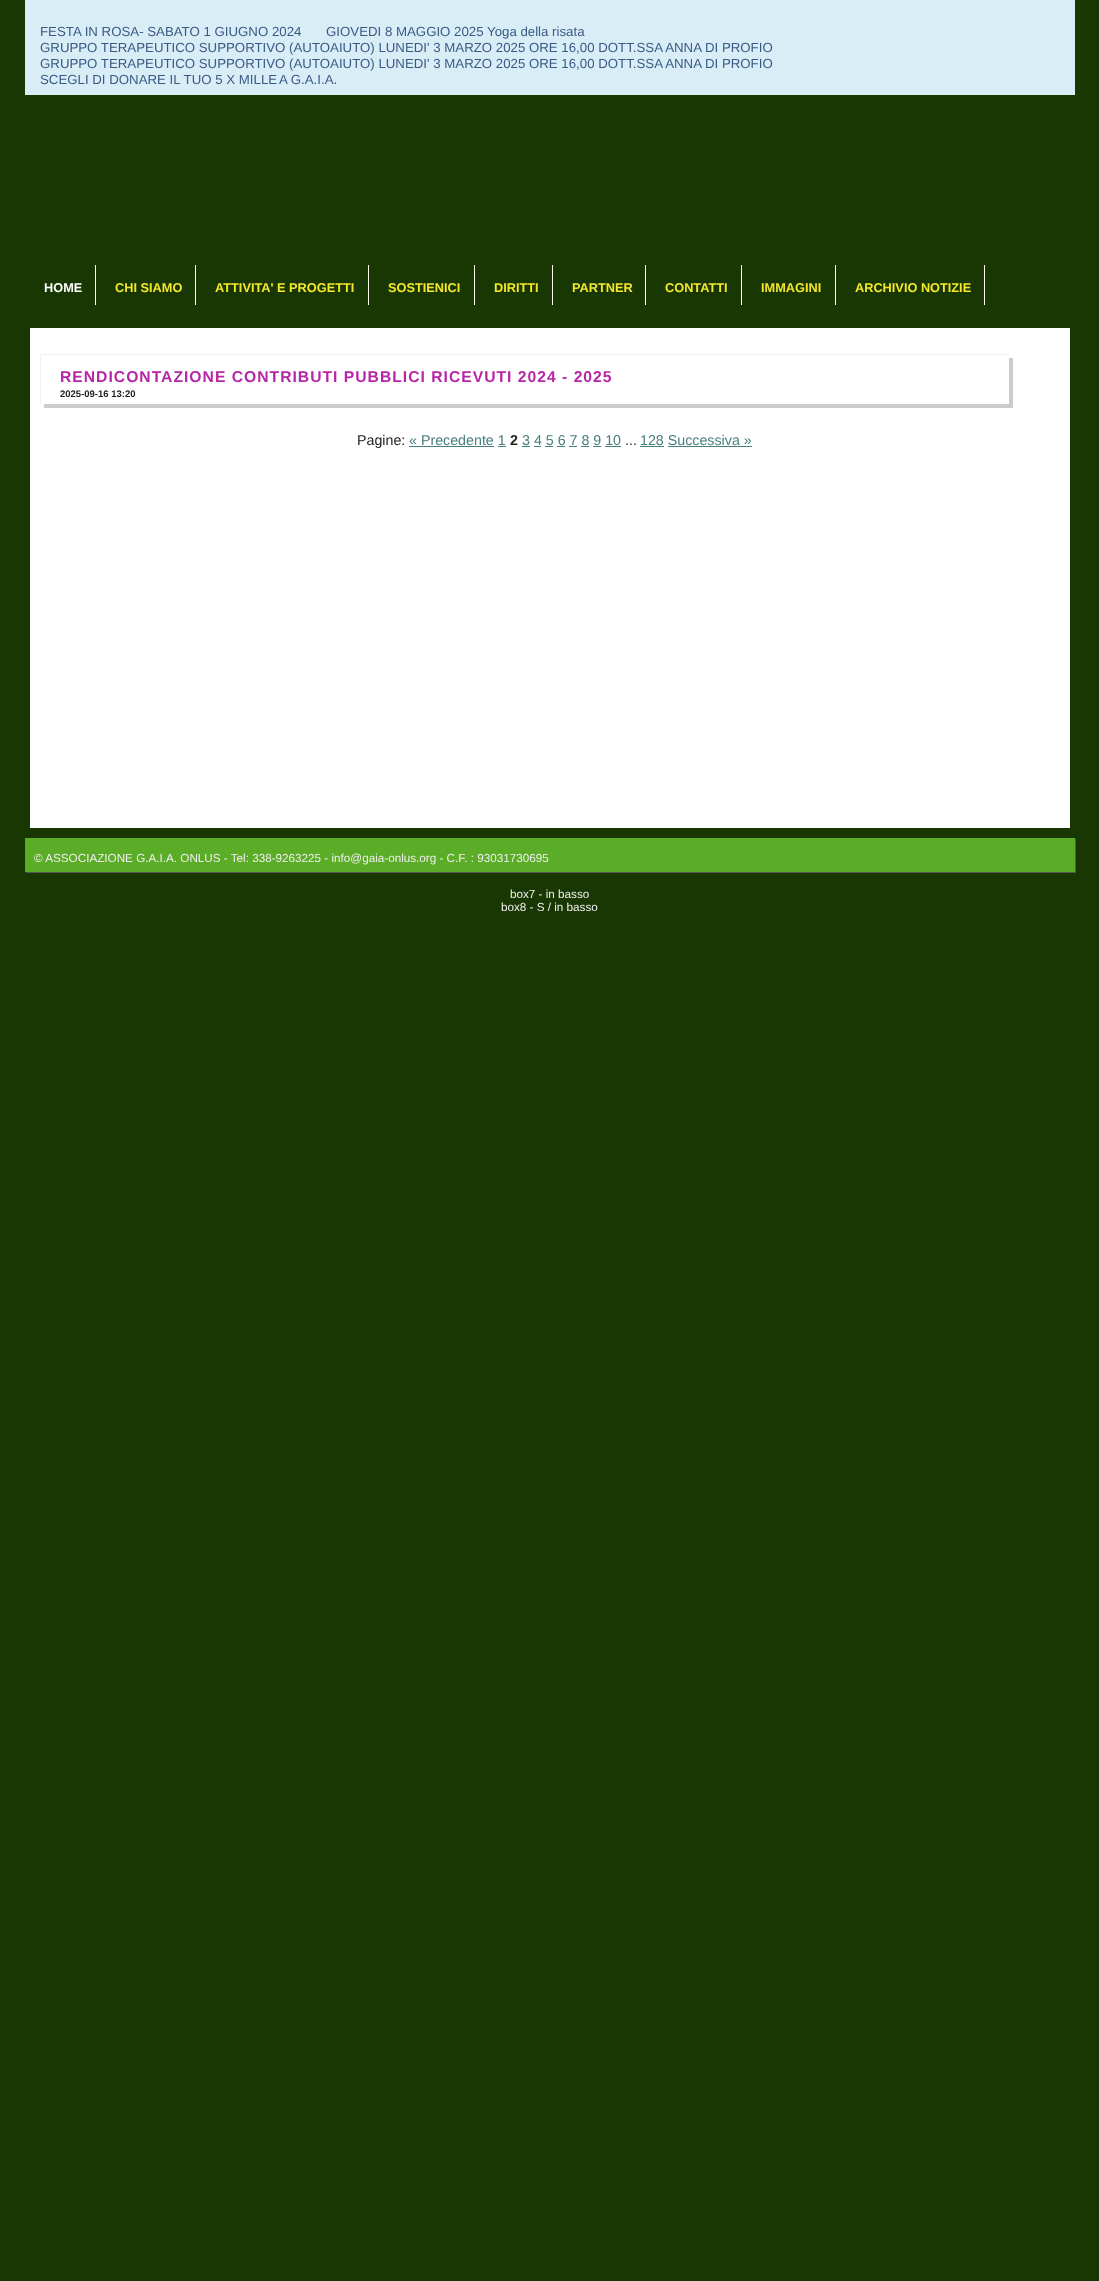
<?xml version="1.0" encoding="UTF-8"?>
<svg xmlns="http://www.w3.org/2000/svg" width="1099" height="2281">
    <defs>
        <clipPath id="clip1"><path d="M 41 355 H 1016 V 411 H 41 Z M 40 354 H 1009 V 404 H 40 Z" clip-rule="evenodd"/></clipPath>
        <filter id="blur1" x="-50%" y="-200%" width="200%" height="500%"><feGaussianBlur stdDeviation="0.5"/></filter>
    </defs>
    <rect width="100%" height="100%" fill="#193703"/>
    <rect x="25" y="0" width="1050" height="95" fill="#D9EDF6"/>
    <text x="40" y="36" font-family="Liberation Sans" font-size="13.25" fill="#3A5A86">FESTA IN ROSA- SABATO 1 GIUGNO 2024</text>
    <text x="326" y="36" font-family="Liberation Sans" font-size="13.25" fill="#3A5A86">GIOVEDI 8 MAGGIO 2025 Yoga della risata</text>
    <text font-family="Liberation Sans" font-size="13.25" fill="#3A5A86">
        <tspan x="40" y="52">GRUPPO TERAPEUTICO SUPPORTIVO (AUTOAIUTO) LUNEDI' 3 MARZO 2025 ORE 16,00 DOTT.SSA ANNA DI PROFIO</tspan>
        <tspan x="40" y="68">GRUPPO TERAPEUTICO SUPPORTIVO (AUTOAIUTO) LUNEDI' 3 MARZO 2025 ORE 16,00 DOTT.SSA ANNA DI PROFIO</tspan>
        <tspan x="40" y="84">SCEGLI DI DONARE IL TUO 5 X MILLE</tspan>
    </text>
    <text x="279" y="84" font-family="Liberation Sans" font-size="13.25" fill="#3A5A86">A G.A.I.A.</text>
    <rect x="95" y="265" width="1" height="40" fill="#FBFCEA"/>
    <text x="44" y="292" font-family="Liberation Sans" font-size="12.75" font-weight="700" fill="#FFFFFF">HOME</text>
    <rect x="195" y="265" width="1" height="40" fill="#FBFCEA"/>
    <text x="115" y="292" font-family="Liberation Sans" font-size="12.75" font-weight="700" fill="#F3E72D">CHI SIAMO</text>
    <rect x="368" y="265" width="1" height="40" fill="#FBFCEA"/>
    <text x="215" y="292" font-family="Liberation Sans" font-size="12.75" font-weight="700" fill="#F3E72D">ATTIVITA' E PROGETTI</text>
    <rect x="474" y="265" width="1" height="40" fill="#FBFCEA"/>
    <text x="388" y="292" font-family="Liberation Sans" font-size="12.75" font-weight="700" fill="#F3E72D">SOSTIENICI</text>
    <rect x="552" y="265" width="1" height="40" fill="#FBFCEA"/>
    <text x="494" y="292" font-family="Liberation Sans" font-size="12.75" font-weight="700" fill="#F3E72D">DIRITTI</text>
    <rect x="645" y="265" width="1" height="40" fill="#FBFCEA"/>
    <text x="572" y="292" font-family="Liberation Sans" font-size="12.75" font-weight="700" fill="#F3E72D">PARTNER</text>
    <rect x="741" y="265" width="1" height="40" fill="#FBFCEA"/>
    <text x="665" y="292" font-family="Liberation Sans" font-size="12.75" font-weight="700" fill="#F3E72D">CONTATTI</text>
    <rect x="835" y="265" width="1" height="40" fill="#FBFCEA"/>
    <text x="761" y="292" font-family="Liberation Sans" font-size="12.75" font-weight="700" fill="#F3E72D">IMMAGINI</text>
    <rect x="984" y="265" width="1" height="40" fill="#FBFCEA"/>
    <text x="855" y="292" font-family="Liberation Sans" font-size="12.75" font-weight="700" fill="#F3E72D">ARCHIVIO NOTIZIE</text>
    <rect x="30" y="328" width="1040" height="500" fill="#FFFFFF"/>
    <g clip-path="url(#clip1)">
        <rect x="44" y="358" width="969" height="50" fill="#CCCCCC" filter="url(#blur1)"/>
    </g>
    <rect x="40" y="354" width="969" height="1" fill="#F1F1F1"/>
    <rect x="40" y="354" width="1" height="50" fill="#F1F1F1"/>
    <text x="60" y="382" font-family="Liberation Sans" font-size="15.7" font-weight="700" letter-spacing="1" fill="#B626A6">RENDICONTAZIONE CONTRIBUTI PUBBLICI RICEVUTI 2024 - 2025</text>
    <text x="60" y="397" font-family="Liberation Sans" font-size="9.5" font-weight="700" fill="#222222">2025-09-16 13:20</text>
    <text x="357" y="445" font-family="Liberation Sans" font-size="14.25" fill="#222222">Pagine:</text>
    <text x="409" y="445" font-family="Liberation Sans" font-size="14.25" fill="#477F7C">« Precedente 1</text>
    <rect x="409" y="446" width="85" height="1" fill="#477F7C"/>
    <text x="510" y="445" font-family="Liberation Sans" font-size="14.25" font-weight="700" fill="#222222">2</text>
    <text x="522" y="445" font-family="Liberation Sans" font-size="14.25" fill="#477F7C">3 4 5 6 7 8 9 10</text>
    <rect x="522" y="446" width="8" height="1" fill="#477F7C"/>
    <text x="625" y="445" font-family="Liberation Sans" font-size="14.25" fill="#222222">...</text>
    <text x="640" y="445" font-family="Liberation Sans" font-size="14.25" fill="#477F7C">128 Successiva »</text>
    <rect x="640" y="446" width="24" height="1" fill="#477F7C"/>
    <rect x="498" y="446" width="8" height="1" fill="#477F7C"/>
    <rect x="534" y="446" width="7" height="1" fill="#477F7C"/>
    <rect x="545" y="446" width="8" height="1" fill="#477F7C"/>
    <rect x="557" y="446" width="8" height="1" fill="#477F7C"/>
    <rect x="569" y="446" width="8" height="1" fill="#477F7C"/>
    <rect x="581" y="446" width="8" height="1" fill="#477F7C"/>
    <rect x="593" y="446" width="8" height="1" fill="#477F7C"/>
    <rect x="605" y="446" width="16" height="1" fill="#477F7C"/>
    <rect x="668" y="446" width="84" height="1" fill="#477F7C"/>
    <rect x="26" y="839" width="1050" height="34" fill="#555555" filter="url(#blur1)"/>
    <rect x="25" y="838" width="1050" height="34" fill="#5BAC26"/>
    <text x="34" y="862" font-family="Liberation Sans" font-size="11.7" fill="#EEEEEE">© ASSOCIAZIONE G.A.I.A. ONLUS - Tel: 338-9263225 - info@gaia-onlus.org - C.F. : 93031730695</text>
    <text x="510" y="898" font-family="Liberation Sans" font-size="11.7" fill="#EEEEEE">box7 - in basso</text>
    <text x="501" y="911" font-family="Liberation Sans" font-size="11.7" fill="#EEEEEE">box8 - S / in basso</text>
</svg>
